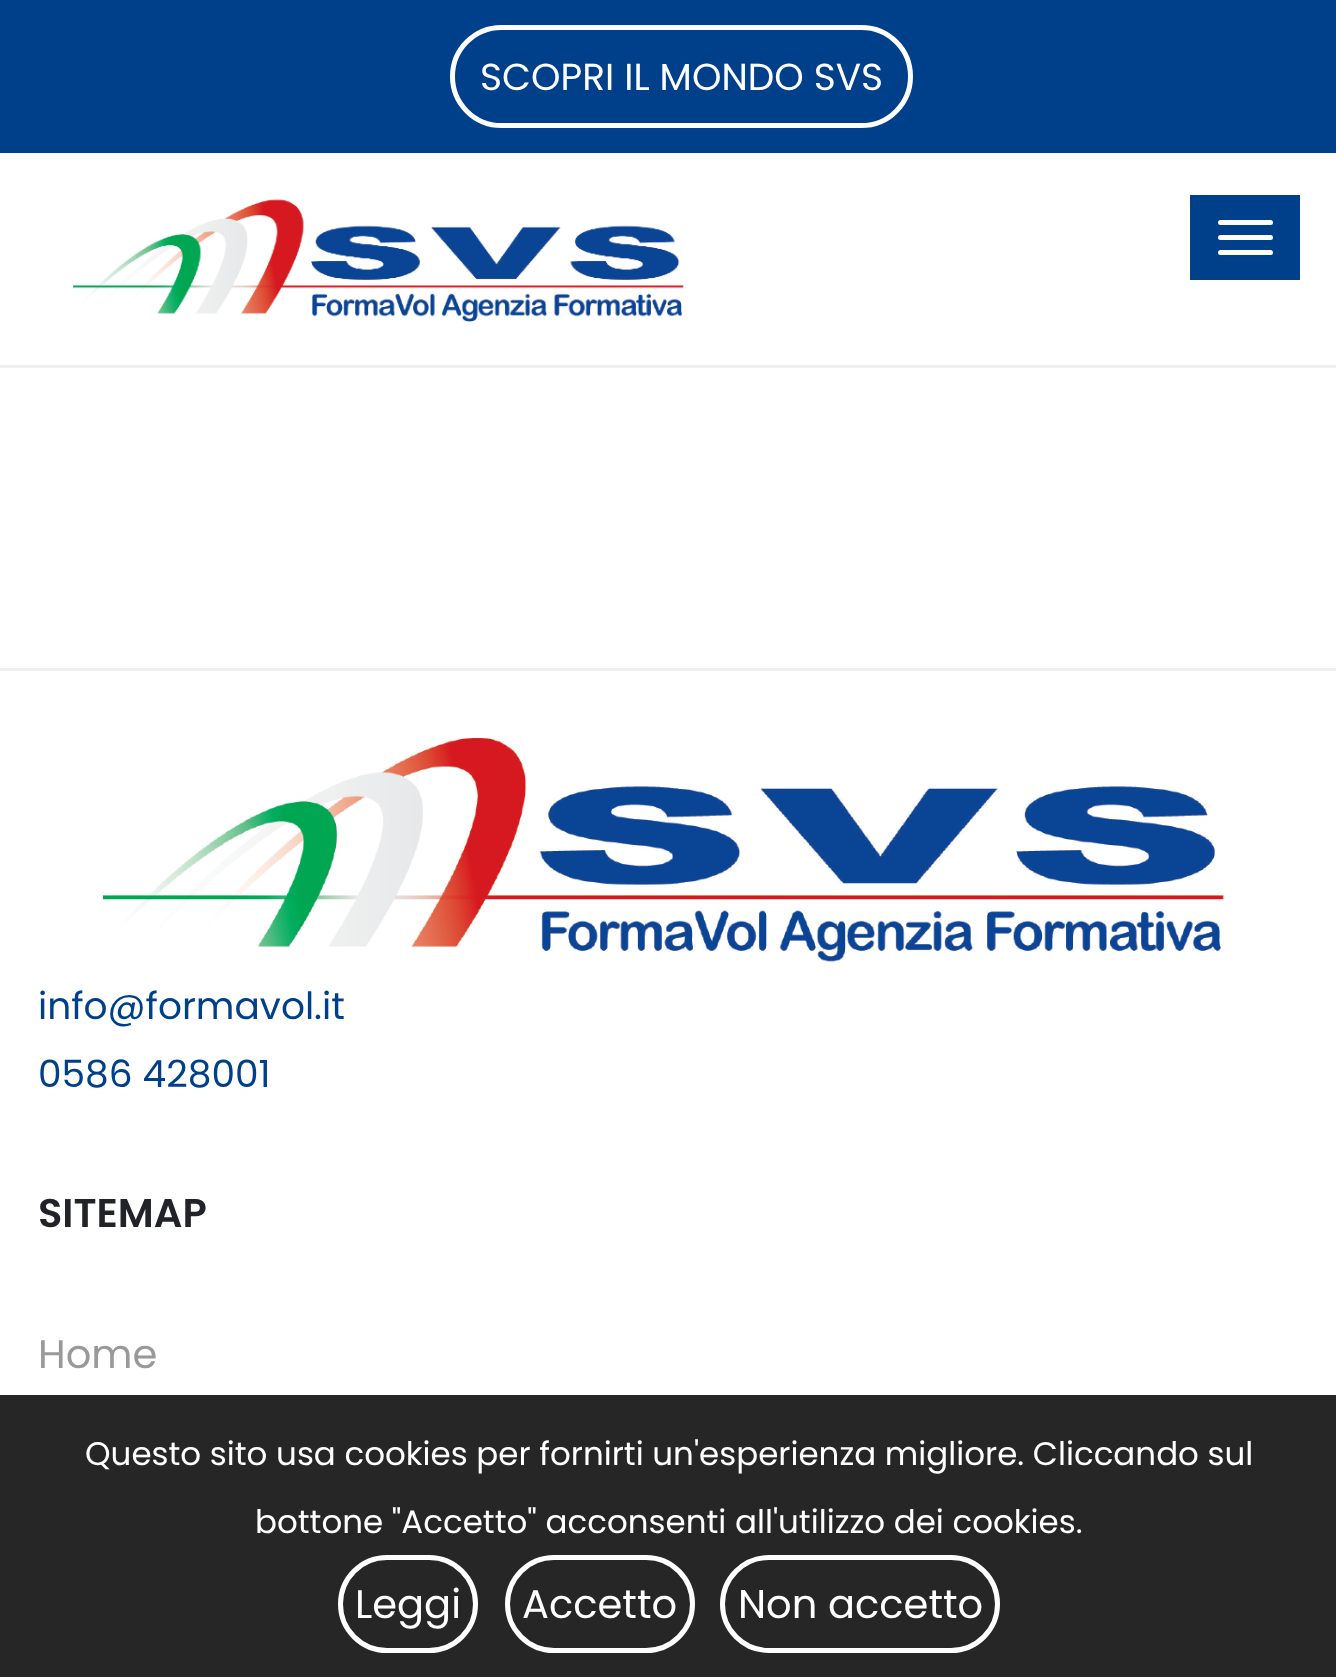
<?xml version="1.0" encoding="UTF-8"?>
<svg xmlns="http://www.w3.org/2000/svg" width="1336" height="1677">
    <rect width="100%" height="100%" fill="#FFFFFF"/>
    <rect x="0" y="1395" width="1336" height="282" fill="#262626"/>
    <rect x="0" y="0" width="1336" height="153" fill="#003F8A"/>
    <rect x="452.5" y="27.5" width="458" height="98" rx="49" fill="none" stroke="#FFFFFF" stroke-width="5"/>
    <text x="480" y="90" font-family="Poppins" font-size="37.5" fill="#FFFFFF">SCOPRI IL MONDO SVS</text>
    <rect x="0" y="365" width="1336" height="3" fill="#EFEFEF"/>
    <image x="73" y="199" width="611" height="123" href="img_01.png"/>
    <rect x="1190" y="195" width="110" height="85" fill="#003F8A"/>
    <rect x="1218" y="220" width="55" height="5" rx="2.5" fill="#FFFFFF"/>
    <rect x="1218" y="235" width="55" height="5" rx="2.5" fill="#FFFFFF"/>
    <rect x="1218" y="250" width="55" height="5" rx="2.5" fill="#FFFFFF"/>
    <rect x="0" y="668" width="1336" height="3" fill="#EFEFEF"/>
    <image x="102" y="738" width="1122" height="224" href="img_02.png"/>
    <text font-family="Poppins" font-size="37.5" fill="#003F8A">
        <tspan x="38" y="1019">info@formavol.it</tspan>
        <tspan x="38" y="1087">0586 428001</tspan>
    </text>
    <text x="38" y="1227" font-family="Poppins" font-size="40" font-weight="600" fill="#222328">SITEMAP</text>
    <text x="38" y="1368" font-family="Poppins" font-size="40" fill="#999999">Home</text>
    <text x="85" y="1465" font-family="Poppins" font-size="32.5" fill="#FFFFFF">Questo sito usa cookies per fornirti un'esperienza migliore. Cliccando sul</text>
    <text x="255" y="1533" font-family="Poppins" font-size="32.5" fill="#FFFFFF">bottone "Accetto" acconsenti all'utilizzo dei cookies.</text>
    <rect x="340.5" y="1557.5" width="135" height="93" rx="46.5" fill="none" stroke="#FFFFFF" stroke-width="5"/>
    <text x="355" y="1618" font-family="Poppins" font-size="40" fill="#FFFFFF">Leggi</text>
    <rect x="507.5" y="1557.5" width="185" height="93" rx="46.5" fill="none" stroke="#FFFFFF" stroke-width="5"/>
    <text x="522" y="1618" font-family="Poppins" font-size="40" fill="#FFFFFF">Accetto</text>
    <rect x="722.5" y="1557.5" width="275" height="93" rx="46.5" fill="none" stroke="#FFFFFF" stroke-width="5"/>
    <text x="738" y="1618" font-family="Poppins" font-size="40" fill="#FFFFFF">Non accetto</text>
</svg>
